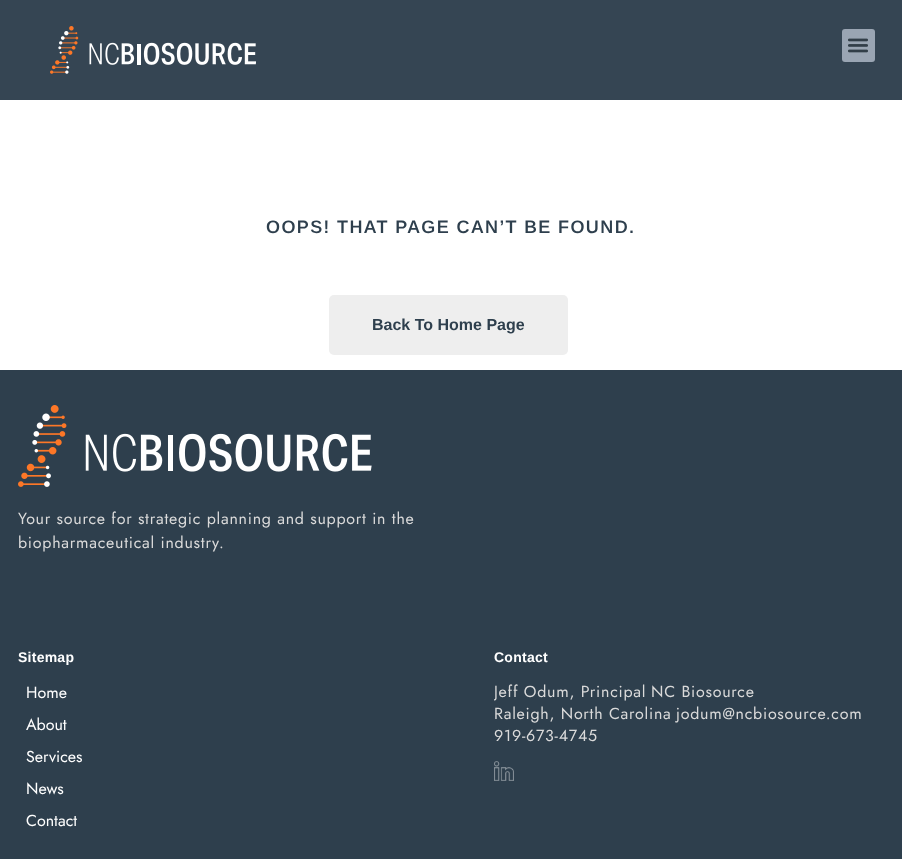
<?xml version="1.0" encoding="UTF-8"?>
<svg xmlns="http://www.w3.org/2000/svg" width="902" height="859">
    <defs>
        <clipPath id="clip1"><rect x="494" y="681" width="390" height="66"/></clipPath>
    </defs>
    <rect width="100%" height="100%" fill="#FFFFFF"/>
    <rect x="0" y="0" width="902" height="100" fill="#2E3F4D" fill-opacity="0.97"/>
    <image x="50" y="26" width="206" height="48" href="img_01.png"/>
    <rect x="842" y="29" width="33" height="33" rx="3" fill="#9AA5B3"/>
    <image x="848" y="38" width="20" height="15" href="img_02.png"/>
    <text x="266" y="233" font-family="Arimo" font-size="18" font-weight="600" letter-spacing="1.4" fill="#2E3F4D">OOPS!</text>
    <text x="337" y="233" font-family="Arimo" font-size="18" font-weight="600" letter-spacing="1.4" fill="#2E3F4D">THAT PAGE CAN’T BE FOUND.</text>
    <rect x="329" y="295" width="239" height="60" rx="5" fill="#EEEEEE"/>
    <text x="372" y="330" font-family="Arimo" font-size="16" font-weight="700" fill="#2E3F4D">Back To Home Page</text>
    <rect x="0" y="370" width="902" height="489" fill="#2E3F4D"/>
    <image x="18" y="405" width="354" height="82" href="img_03.png"/>
    <text font-family="Jost" font-size="16" letter-spacing="0.75" fill="#DADADA">
        <tspan x="18" y="524">Your source for strategic planning and support in the</tspan>
        <tspan x="18" y="548">biopharmaceutical industry.</tspan>
    </text>
    <text x="18" y="662" font-family="Arimo" font-size="14" font-weight="700" letter-spacing="0.25" fill="#FFFFFF">Sitemap</text>
    <text x="26" y="698" font-family="Jost" font-size="16" fill="#FFFFFF">Home</text>
    <text x="26" y="730" font-family="Jost" font-size="16" fill="#FFFFFF">About</text>
    <text x="26" y="762" font-family="Jost" font-size="16" fill="#FFFFFF">Services</text>
    <text x="26" y="794" font-family="Jost" font-size="16" fill="#FFFFFF">News</text>
    <text x="26" y="826" font-family="Jost" font-size="16" fill="#FFFFFF">Contact</text>
    <text x="494" y="662" font-family="Arimo" font-size="14" font-weight="700" letter-spacing="0.25" fill="#FFFFFF">Contact</text>
    <g clip-path="url(#clip1)">
        <text x="494" y="697" font-family="Jost" font-size="16" letter-spacing="0.75" fill="#DADADA">Jeff Odum, Principal</text>
    </g>
    <text x="651" y="697" font-family="Jost" font-size="16" letter-spacing="0.75" fill="#DADADA">NC Biosource</text>
    <text x="494" y="719" font-family="Jost" font-size="16" letter-spacing="0.75" fill="#DADADA">Raleigh, North Carolina</text>
    <text x="676" y="719" font-family="Jost" font-size="16" letter-spacing="0.75" fill="#DADADA">jodum@ncbiosource.com</text>
    <text x="494" y="741" font-family="Jost" font-size="16" letter-spacing="0.75" fill="#DADADA">919-673-4745</text>
    <image x="494" y="761" width="20" height="20" href="img_04.png"/>
</svg>
